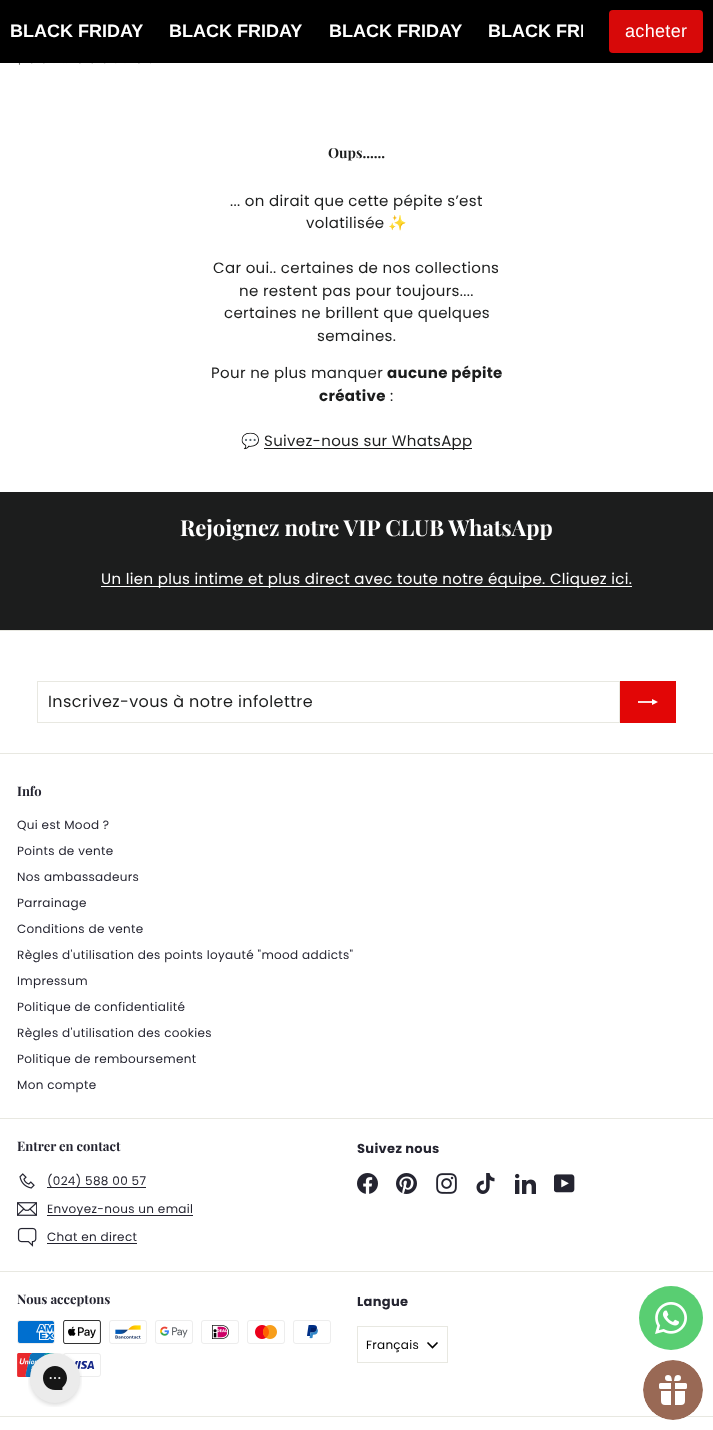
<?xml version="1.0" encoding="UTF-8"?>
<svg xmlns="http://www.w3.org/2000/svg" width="713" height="1430">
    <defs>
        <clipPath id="clip1"><rect x="10" y="21" width="573" height="21"/></clipPath>
    </defs>
    <rect width="100%" height="100%" fill="#FFFFFF"/>
    <rect x="0" y="0" width="713" height="63" fill="#000000"/>
    <text x="10" y="37" font-family="Liberation Sans" font-size="18" font-weight="700" fill="#FFFFFF">BLACK FRIDAY</text>
    <text x="169" y="37" font-family="Liberation Sans" font-size="18" font-weight="700" fill="#FFFFFF">BLACK FRIDAY</text>
    <text x="329" y="37" font-family="Liberation Sans" font-size="18" font-weight="700" fill="#FFFFFF">BLACK FRIDAY</text>
    <g clip-path="url(#clip1)">
        <text x="488" y="37" font-family="Liberation Sans" font-size="18" font-weight="700" fill="#FFFFFF">BLACK FRI</text>
    </g>
    <rect x="609" y="10" width="94" height="43" rx="4" fill="#D70909"/>
    <text x="625" y="37" font-family="Liberation Sans" font-size="18" letter-spacing="0.33" fill="#FFFFFF">acheter</text>
    <image x="18" y="63" width="133" height="2" href="img_01.png"/>
    <text x="328" y="158" font-family="Playfair Display" font-size="14" font-weight="700" fill="#1C1D1D">Oups......</text>
    <text x="230" y="206" font-family="Poppins" font-size="15" letter-spacing="0.33" fill="#1C1D1D">... on dirait que cette pépite s’est</text>
    <text x="306" y="228" font-family="Poppins" font-size="15" letter-spacing="0.33" fill="#1C1D1D">volatilisée</text>
    <text x="388" y="228" font-family="Noto Color Emoji" font-size="15" letter-spacing="0.33" fill="#1C1D1D">✨</text>
    <text x="213" y="273" font-family="Poppins" font-size="15" letter-spacing="0.33" fill="#1C1D1D">Car oui.. certaines de nos collections</text>
    <text x="239" y="296" font-family="Poppins" font-size="15" letter-spacing="0.33" fill="#1C1D1D">ne restent pas pour toujours....</text>
    <text x="224" y="318" font-family="Poppins" font-size="15" letter-spacing="0.33" fill="#1C1D1D">certaines ne brillent que quelques</text>
    <text x="317" y="341" font-family="Poppins" font-size="15" letter-spacing="0.33" fill="#1C1D1D">semaines.</text>
    <text x="211" y="378" font-family="Poppins" font-size="15" letter-spacing="0.33" fill="#1C1D1D">Pour ne plus manquer</text>
    <text x="387" y="378" font-family="Poppins" font-size="15" font-weight="700" letter-spacing="0.33" fill="#1C1D1D">aucune pépite</text>
    <text x="319" y="401" font-family="Poppins" font-size="15" font-weight="700" letter-spacing="0.33" fill="#1C1D1D">créative</text>
    <text x="390" y="401" font-family="Poppins" font-size="15" letter-spacing="0.33" fill="#1C1D1D">:</text>
    <text x="241" y="446" font-family="Noto Color Emoji" font-size="15" letter-spacing="0.33" fill="#1C1D1D">💬</text>
    <rect x="264" y="448" width="208" height="1" fill="#1C1D1D"/>
    <text x="264" y="446" font-family="Poppins" font-size="15" letter-spacing="0.33" fill="#1C1D1D">Suivez-nous sur WhatsApp</text>
    <rect x="0" y="492" width="713" height="138" fill="#1C1D1D"/>
    <text x="180" y="536" font-family="Playfair Display" font-size="22" font-weight="700" fill="#FFFFFF">Rejoignez notre VIP CLUB WhatsApp</text>
    <rect x="101" y="586" width="531" height="1" fill="#FFFFFF"/>
    <text x="101" y="584" font-family="Poppins" font-size="15" letter-spacing="0.33" fill="#FFFFFF">Un lien plus intime et plus direct avec toute notre équipe. Cliquez ici.</text>
    <rect x="0" y="630" width="713" height="1" fill="#E8E8E1"/>
    <rect x="37.5" y="681.5" width="582" height="41" fill="none" stroke="#E8E8E1"/>
    <text x="48" y="707" font-family="Poppins" font-size="16" letter-spacing="0.4" fill="#1C1D1D">Inscrivez-vous à notre infolettre</text>
    <rect x="620" y="681" width="56" height="42" fill="#E20606"/>
    <image x="638" y="699" width="20" height="6" href="img_02.png"/>
    <rect x="0" y="753" width="713" height="1" fill="#E8E8E1"/>
    <text x="17" y="796" font-family="Playfair Display" font-size="13" font-weight="700" fill="#242430">Info</text>
    <text x="17" y="829" font-family="Poppins" font-size="12" letter-spacing="0.33" fill="#242430">Qui est Mood ?</text>
    <text x="17" y="855" font-family="Poppins" font-size="12" letter-spacing="0.33" fill="#242430">Points de vente</text>
    <text x="17" y="881" font-family="Poppins" font-size="12" letter-spacing="0.33" fill="#242430">Nos ambassadeurs</text>
    <text x="17" y="907" font-family="Poppins" font-size="12" letter-spacing="0.33" fill="#242430">Parrainage</text>
    <text x="17" y="933" font-family="Poppins" font-size="12" letter-spacing="0.33" fill="#242430">Conditions de vente</text>
    <text x="17" y="959" font-family="Poppins" font-size="12" letter-spacing="0.33" fill="#242430">Règles d'utilisation des points loyauté "mood addicts"</text>
    <text x="17" y="985" font-family="Poppins" font-size="12" letter-spacing="0.33" fill="#242430">Impressum</text>
    <text x="17" y="1011" font-family="Poppins" font-size="12" letter-spacing="0.33" fill="#242430">Politique de confidentialité</text>
    <text x="17" y="1037" font-family="Poppins" font-size="12" letter-spacing="0.33" fill="#242430">Règles d'utilisation des cookies</text>
    <text x="17" y="1063" font-family="Poppins" font-size="12" letter-spacing="0.33" fill="#242430">Politique de remboursement</text>
    <text x="17" y="1089" font-family="Poppins" font-size="12" letter-spacing="0.33" fill="#242430">Mon compte</text>
    <rect x="0" y="1118" width="713" height="1" fill="#E8E8E1"/>
    <text x="17" y="1151" font-family="Playfair Display" font-size="13" font-weight="700" fill="#242430">Entrer en contact</text>
    <image x="19" y="1173" width="16" height="16" href="img_03.png"/>
    <rect x="47" y="1187" width="99" height="1" fill="#242430"/>
    <text x="47" y="1185" font-family="Poppins" font-size="12" letter-spacing="0.33" fill="#242430">(024) 588 00 57</text>
    <image x="17" y="1202" width="20" height="14" href="img_04.png"/>
    <rect x="47" y="1215" width="146" height="1" fill="#242430"/>
    <text x="47" y="1213" font-family="Poppins" font-size="12" letter-spacing="0.33" fill="#242430">Envoyez-nous un email</text>
    <image x="17" y="1227" width="20" height="20" href="img_05.png"/>
    <text x="47" y="1241" font-family="Poppins" font-size="12" letter-spacing="0.33" fill="#242430">Chat en direct</text>
    <rect x="47" y="1243" width="90" height="1" fill="#242430"/>
    <text x="357" y="1153" font-family="Poppins" font-size="13" font-weight="700" letter-spacing="0.33" fill="#242430">Suivez nous</text>
    <image x="357" y="1173" width="21" height="21" href="img_06.png"/>
    <image x="396" y="1173" width="21" height="21" href="img_07.png"/>
    <image x="436" y="1173" width="21" height="21" href="img_08.png"/>
    <image x="476" y="1173" width="19" height="21" href="img_09.png"/>
    <image x="515" y="1173" width="21" height="21" href="img_10.png"/>
    <image x="554" y="1174" width="21" height="19" href="img_11.png"/>
    <rect x="0" y="1271" width="713" height="1" fill="#E8E8E1"/>
    <text x="17" y="1304" font-family="Playfair Display" font-size="13" font-weight="700" fill="#242430">Nous acceptons</text>
    <image x="17" y="1320" width="38" height="24" href="img_12.png"/>
    <image x="63" y="1320" width="38" height="24" href="img_13.png"/>
    <image x="109" y="1320" width="38" height="24" href="img_14.png"/>
    <image x="155" y="1320" width="38" height="24" href="img_15.png"/>
    <image x="201" y="1320" width="38" height="24" href="img_16.png"/>
    <image x="247" y="1320" width="38" height="24" href="img_17.png"/>
    <image x="293" y="1320" width="38" height="24" href="img_18.png"/>
    <image x="17" y="1353" width="38" height="24" href="img_19.png"/>
    <image x="63" y="1353" width="38" height="24" href="img_20.png"/>
    <text x="357" y="1306" font-family="Poppins" font-size="13" font-weight="700" letter-spacing="0.33" fill="#242430">Langue</text>
    <rect x="357.5" y="1326.5" width="90" height="36" fill="none" stroke="#E8E8E1"/>
    <text x="366" y="1349" font-family="Poppins" font-size="12" letter-spacing="0.25" fill="#000000">Français</text>
    <path d="M 427.5 1342.5 L 432.5 1347.5 L 437.5 1342.5" fill="none" stroke="#000000" stroke-width="1.6"/>
    <rect x="0" y="1416" width="713" height="1" fill="#E8E8E1"/>
    <circle cx="671" cy="1318" r="32" fill="#59CE72"/>
    <image x="655" y="1302" width="32" height="32" href="img_21.png"/>
    <image x="28" y="1353" width="54" height="54" href="img_22.png"/>
    <image x="643" y="1360" width="60" height="60" href="img_23.png"/>
</svg>
